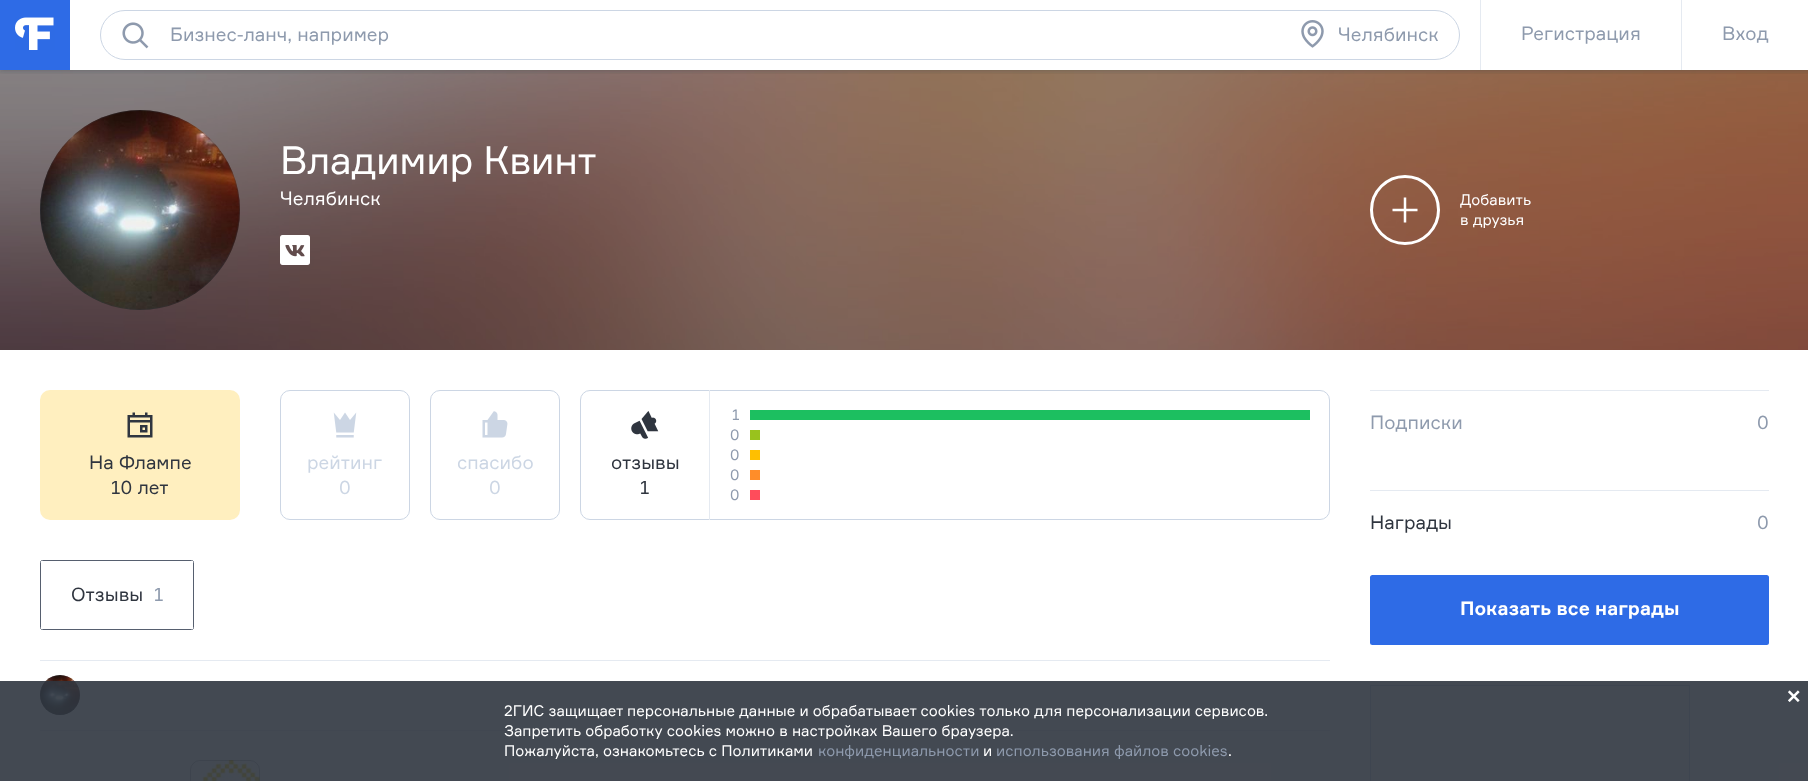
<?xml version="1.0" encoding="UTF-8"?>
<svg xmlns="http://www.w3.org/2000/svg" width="1808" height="781">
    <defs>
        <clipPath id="clip1"><rect x="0" y="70" width="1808" height="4"/></clipPath>
        <filter id="blur1" x="-50%" y="-200%" width="200%" height="500%"><feGaussianBlur stdDeviation="2"/></filter>
    </defs>
    <rect width="100%" height="100%" fill="#FFFFFF"/>
    <image x="0" y="70" width="1808" height="280" href="img_04.png"/>
    <g clip-path="url(#clip1)">
        <rect x="0" y="1" width="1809" height="70" fill="#2F353F" fill-opacity="0.3" filter="url(#blur1)"/>
    </g>
    <rect x="0" y="0" width="70" height="70" fill="#2E6BE6"/>
    <image x="15" y="17" width="40" height="33" href="img_01.png"/>
    <rect x="100.5" y="10.5" width="1359" height="49" rx="24.5" fill="none" stroke="#CCD6E4"/>
    <image x="122" y="22" width="27" height="27" href="img_02.png"/>
    <text x="170" y="41" font-family="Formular" font-size="18.75" fill="#8E9AAD">Бизнес-ланч, например</text>
    <image x="1301" y="20" width="23" height="28" href="img_03.png"/>
    <text x="1338" y="41" font-family="Formular" font-size="18.75" fill="#8E9AAD">Челябинск</text>
    <rect x="1480" y="0" width="1" height="70" fill="#E5EAF1"/>
    <text x="1521" y="40" font-family="Formular" font-size="18.75" fill="#8E9AAD">Регистрация</text>
    <rect x="1681" y="0" width="1" height="70" fill="#E5EAF1"/>
    <text x="1722" y="40" font-family="Formular" font-size="18.75" fill="#8E9AAD">Вход</text>
    <image x="40" y="110" width="200" height="200" href="img_05.png"/>
    <circle cx="140" cy="210" r="99.5" fill="none" stroke="#2F353F" stroke-opacity="0.3"/>
    <text x="280" y="174" font-family="Formular" font-size="38.75" letter-spacing="-0.4" fill="#FFFFFF">Владимир Квинт</text>
    <text x="280" y="205" font-family="Formular" font-size="18.75" fill="#FFFFFF">Челябинск</text>
    <image x="280" y="235" width="30" height="30" href="img_06.png"/>
    <circle cx="1405" cy="210" r="33.5" fill="none" stroke="#FFFFFF" stroke-width="3"/>
    <image x="1392" y="197" width="26" height="26" href="img_07.png"/>
    <text font-family="Formular" font-size="15" fill="#FFFFFF">
        <tspan x="1460" y="205">Добавить</tspan>
        <tspan x="1460" y="225">в друзья</tspan>
    </text>
    <rect x="40" y="390" width="200" height="130" rx="10" fill="#FFEFBF"/>
    <image x="127" y="412" width="26" height="26" href="img_08.png"/>
    <text x="89" y="469" font-family="Formular" font-size="18.75" fill="#2F353F">На Флампе</text>
    <text x="111" y="494" font-family="Formular" font-size="18.75" fill="#2F353F">10 лет</text>
    <rect x="280.5" y="390.5" width="129" height="129" rx="9.5" fill="none" stroke="#CCD6E4"/>
    <image x="333" y="412" width="24" height="26" href="img_09.png"/>
    <text x="307" y="469" font-family="Formular" font-size="18.75" fill="#CCD6E4">рейтинг</text>
    <text x="339" y="494" font-family="Formular" font-size="18.75" fill="#CCD6E4">0</text>
    <rect x="430.5" y="390.5" width="129" height="129" rx="9.5" fill="none" stroke="#CCD6E4"/>
    <image x="482" y="411" width="26" height="27" href="img_10.png"/>
    <text x="457" y="469" font-family="Formular" font-size="18.75" fill="#CCD6E4">спасибо</text>
    <text x="489" y="494" font-family="Formular" font-size="18.75" fill="#CCD6E4">0</text>
    <rect x="580.5" y="390.5" width="749" height="129" rx="9.5" fill="none" stroke="#CCD6E4"/>
    <rect x="709" y="390" width="1" height="130" fill="#E5EAF1"/>
    <image x="631" y="411" width="28" height="28" href="img_11.png"/>
    <text x="611" y="469" font-family="Formular" font-size="18.75" fill="#2F353F">отзывы</text>
    <text x="640" y="494" font-family="Formular" font-size="18.75" fill="#2F353F">1</text>
    <text x="732" y="420" font-family="Formular" font-size="15" fill="#8E9AAD">1</text>
    <text font-family="Formular" font-size="15" fill="#8E9AAD">
        <tspan x="730" y="440">0</tspan>
        <tspan x="730" y="460">0</tspan>
        <tspan x="730" y="480">0</tspan>
        <tspan x="730" y="500">0</tspan>
    </text>
    <rect x="750" y="410" width="560" height="10" fill="#1CBF60"/>
    <rect x="750" y="430" width="10" height="10" fill="#99C21D"/>
    <rect x="750" y="450" width="10" height="10" fill="#FFBF00"/>
    <rect x="750" y="470" width="10" height="10" fill="#FF8D29"/>
    <rect x="750" y="490" width="10" height="10" fill="#FF4C5B"/>
    <rect x="40.5" y="560.5" width="153" height="69" rx="2" fill="none" stroke="#565F6F"/>
    <rect x="41" y="561" width="152" height="68" fill="#FFFFFF"/>
    <text x="71" y="601" font-family="Formular" font-size="18.75" fill="#2F353F">Отзывы</text>
    <text x="154" y="601" font-family="Formular" font-size="18.75" fill="#8E9AAD">1</text>
    <rect x="40" y="660" width="1290" height="1" fill="#E5EAF1"/>
    <rect x="40" y="730" width="1290" height="1" fill="#E5EAF1"/>
    <image x="40" y="675" width="40" height="40" href="img_12.png"/>
    <circle cx="60" cy="695" r="19.5" fill="none" stroke="#2F353F" stroke-opacity="0.3"/>
    <image x="201" y="760" width="59" height="21" href="img_13.png"/>
    <rect x="190.5" y="760.5" width="69" height="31" rx="9.5" fill="none" stroke="#2F353F" stroke-opacity="0.3"/>
    <rect x="1370" y="390" width="399" height="1" fill="#E5EAF1"/>
    <text x="1370" y="429" font-family="Formular" font-size="18.75" fill="#8E9AAD">Подписки</text>
    <text x="1757" y="429" font-family="Formular" font-size="18.75" fill="#8E9AAD">0</text>
    <rect x="1370" y="490" width="399" height="1" fill="#E5EAF1"/>
    <text x="1370" y="529" font-family="Formular" font-size="18.75" fill="#2F353F">Награды</text>
    <text x="1757" y="529" font-family="Formular" font-size="18.75" fill="#8E9AAD">0</text>
    <rect x="1370" y="575" width="399" height="70" rx="2.5" fill="#2E6BE6"/>
    <text x="1460" y="615" font-family="Formular" font-size="18.75" font-weight="700" fill="#FFFFFF">Показать все награды</text>
    <rect x="1370.5" y="685.5" width="319" height="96" fill="none" stroke="#CCD6E4"/>
    <rect x="0" y="681" width="1808" height="100" fill="#2F353F" fill-opacity="0.9"/>
    <image x="1788" y="690" width="12" height="12" href="img_14.png"/>
    <text font-family="Formular" font-size="15" fill="#FFFFFF">
        <tspan x="504" y="716">2ГИС защищает персональные данные и обрабатывает cookies только для персонализации сервисов.</tspan>
        <tspan x="504" y="736">Запретить обработку cookies можно в настройках Вашего браузера.</tspan>
        <tspan x="504" y="756">Пожалуйста, ознакомьтесь с Политиками</tspan>
    </text>
    <text x="818" y="756" font-family="Formular" font-size="15" fill="#8E9AAD">конфиденциальности</text>
    <text x="983" y="756" font-family="Formular" font-size="15" fill="#FFFFFF">и</text>
    <text x="996" y="756" font-family="Formular" font-size="15" fill="#8E9AAD">использования файлов cookies</text>
    <text x="1228" y="756" font-family="Formular" font-size="15" fill="#FFFFFF">.</text>
</svg>
